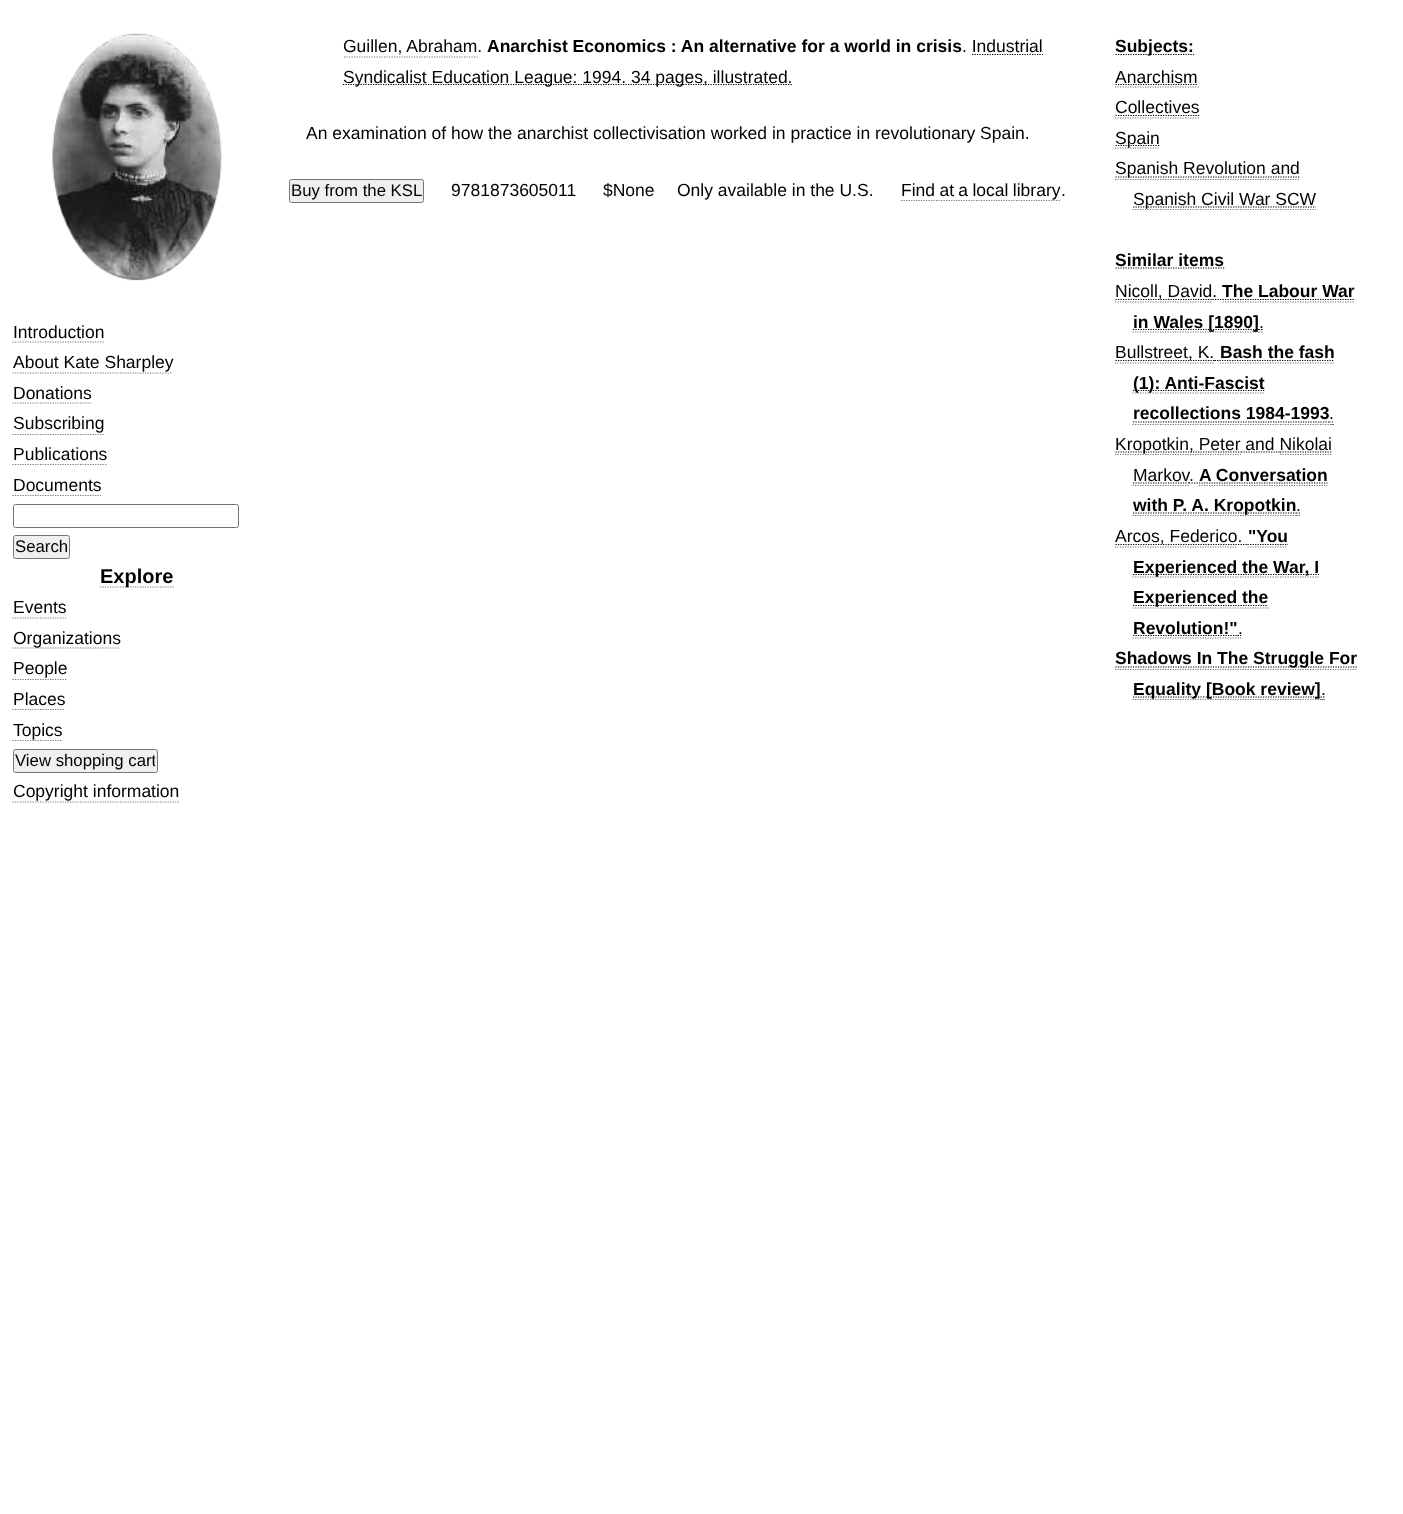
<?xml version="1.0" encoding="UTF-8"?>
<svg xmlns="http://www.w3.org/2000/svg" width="1403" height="1514">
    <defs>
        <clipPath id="clip1"><rect x="15" y="751" width="140" height="19"/></clipPath>
    </defs>
    <rect width="100%" height="100%" fill="#FFFFFF"/>
    <image x="52" y="33" width="170" height="248" href="img_01.png"/>
    <text x="13" y="338" font-family="Liberation Sans" font-size="17.5" fill="#000000">Introduction</text>
    <path d="M 12.5 342 H 104" fill="none" stroke="#777777" stroke-width="1.2" stroke-dasharray="1.25 1.25"/>
    <text x="13" y="368" font-family="Liberation Sans" font-size="17.5" fill="#000000">About Kate Sharpley</text>
    <path d="M 12.5 373 H 172.5" fill="none" stroke="#777777" stroke-width="1.2" stroke-dasharray="1.25 1.25"/>
    <text x="13" y="399" font-family="Liberation Sans" font-size="17.5" fill="#000000">Donations</text>
    <path d="M 12.5 403 H 91" fill="none" stroke="#777777" stroke-width="1.2" stroke-dasharray="1.25 1.25"/>
    <text x="13" y="429" font-family="Liberation Sans" font-size="17.5" fill="#000000">Subscribing</text>
    <path d="M 12.5 434.5 H 104" fill="none" stroke="#777777" stroke-width="1.2" stroke-dasharray="1.25 1.25"/>
    <text x="13" y="460" font-family="Liberation Sans" font-size="17.5" fill="#000000">Publications</text>
    <path d="M 12.5 464.5 H 107.5" fill="none" stroke="#777777" stroke-width="1.2" stroke-dasharray="1.25 1.25"/>
    <text x="13" y="491" font-family="Liberation Sans" font-size="17.5" fill="#000000">Documents</text>
    <path d="M 12.5 495.5 H 101" fill="none" stroke="#777777" stroke-width="1.2" stroke-dasharray="1.25 1.25"/>
    <rect x="13.5" y="504.5" width="225" height="23" rx="2" fill="none" stroke="#767676"/>
    <rect x="13.5" y="535.5" width="56" height="23" rx="2" fill="#EFEFEF" stroke="#767676"/>
    <text x="15" y="552" font-family="Liberation Sans" font-size="16.75" fill="#000000">Search</text>
    <path d="M 100 587 H 174" fill="none" stroke="#777777" stroke-width="1.2" stroke-dasharray="1.25 1.25"/>
    <text x="100" y="583" font-family="Liberation Sans" font-size="20" font-weight="700" fill="#000000">Explore</text>
    <text x="13" y="613" font-family="Liberation Sans" font-size="17.5" fill="#000000">Events</text>
    <path d="M 12.5 618 H 66" fill="none" stroke="#777777" stroke-width="1.2" stroke-dasharray="1.25 1.25"/>
    <path d="M 12.5 648 H 120" fill="none" stroke="#777777" stroke-width="1.2" stroke-dasharray="1.25 1.25"/>
    <text font-family="Liberation Sans" font-size="17.5" fill="#000000">
        <tspan x="13" y="644">Organizations</tspan>
        <tspan x="13" y="674">People</tspan>
    </text>
    <path d="M 12.5 679.5 H 67.5" fill="none" stroke="#777777" stroke-width="1.2" stroke-dasharray="1.25 1.25"/>
    <text x="13" y="705" font-family="Liberation Sans" font-size="17.5" fill="#000000">Places</text>
    <path d="M 12.5 709.5 H 65" fill="none" stroke="#777777" stroke-width="1.2" stroke-dasharray="1.25 1.25"/>
    <path d="M 12.5 740.5 H 62.5" fill="none" stroke="#777777" stroke-width="1.2" stroke-dasharray="1.25 1.25"/>
    <text x="13" y="736" font-family="Liberation Sans" font-size="17.5" fill="#000000">Topics</text>
    <rect x="13.5" y="749.5" width="144" height="23" rx="2" fill="#EFEFEF" stroke="#767676"/>
    <g clip-path="url(#clip1)">
        <text x="15" y="766" font-family="Liberation Sans" font-size="16.75" fill="#000000">View shopping cart</text>
    </g>
    <text x="13" y="797" font-family="Liberation Sans" font-size="17.5" fill="#000000">Copyright information</text>
    <path d="M 12.5 802 H 179" fill="none" stroke="#777777" stroke-width="1.2" stroke-dasharray="1.25 1.25"/>
    <text x="343" y="52" font-family="Liberation Sans" font-size="17.5" fill="#000000">Guillen, Abraham.</text>
    <path d="M 344 57 H 477.5" fill="none" stroke="#777777" stroke-width="1.2" stroke-dasharray="1.25 1.25"/>
    <text x="487" y="52" font-family="Liberation Sans" font-size="17.5" font-weight="700" fill="#000000">Anarchist Economics : An alternative for a world in crisis</text>
    <text x="962" y="52" font-family="Liberation Sans" font-size="17.5" fill="#000000">. Industrial</text>
    <path d="M 343 84.5 H 792.5" fill="none" stroke="#000000" stroke-width="1.2" stroke-dasharray="1.25 1.25"/>
    <text x="343" y="83" font-family="Liberation Sans" font-size="17.5" fill="#000000">Syndicalist Education League: 1994. 34 pages, illustrated.</text>
    <path d="M 972 54.5 H 1043" fill="none" stroke="#000000" stroke-width="1.2" stroke-dasharray="1.25 1.25"/>
    <text x="306" y="139" font-family="Liberation Sans" font-size="17.5" fill="#000000">An examination of how the anarchist collectivisation worked in practice in revolutionary Spain.</text>
    <rect x="289.5" y="179.5" width="134" height="23" rx="2" fill="#EFEFEF" stroke="#767676"/>
    <text x="291" y="196" font-family="Liberation Sans" font-size="16.75" fill="#000000">Buy from the KSL</text>
    <text x="451" y="196" font-family="Liberation Sans" font-size="17.5" fill="#000000">9781873605011</text>
    <text x="603" y="196" font-family="Liberation Sans" font-size="17.5" fill="#000000">$None</text>
    <text x="677" y="196" font-family="Liberation Sans" font-size="17.5" fill="#000000">Only available in the U.S.</text>
    <path d="M 901 200.5 H 1061" fill="none" stroke="#777777" stroke-width="1.2" stroke-dasharray="1.25 1.25"/>
    <text x="901" y="196" word-spacing="-0.5" font-family="Liberation Sans" font-size="17.5" fill="#000000">Find at a local library</text>
    <text x="1061" y="196" font-family="Liberation Sans" font-size="17.5" fill="#000000">.</text>
    <path d="M 1115.5 54.5 H 1194" fill="none" stroke="#000000" stroke-width="1.2" stroke-dasharray="1.25 1.25"/>
    <text x="1115" y="52" font-family="Liberation Sans" font-size="17.5" font-weight="700" fill="#000000">Subjects:</text>
    <path d="M 1115.5 84.5 H 1198" fill="none" stroke="#000000" stroke-width="1.2" stroke-dasharray="1.25 1.25"/>
    <text x="1115" y="83" font-family="Liberation Sans" font-size="17.5" fill="#000000">Anarchism</text>
    <path d="M 1115 87 H 1199" fill="none" stroke="#777777" stroke-width="1.2" stroke-dasharray="1.25 1.25"/>
    <text x="1115" y="113" font-family="Liberation Sans" font-size="17.5" fill="#000000">Collectives</text>
    <path d="M 1115 118 H 1200" fill="none" stroke="#777777" stroke-width="1.2" stroke-dasharray="1.25 1.25"/>
    <path d="M 1115.5 115.5 H 1200" fill="none" stroke="#000000" stroke-width="1.2" stroke-dasharray="1.25 1.25"/>
    <path d="M 1115 148 H 1160" fill="none" stroke="#777777" stroke-width="1.2" stroke-dasharray="1.25 1.25"/>
    <path d="M 1115.5 145.5 H 1160" fill="none" stroke="#000000" stroke-width="1.2" stroke-dasharray="1.25 1.25"/>
    <text x="1115" y="144" font-family="Liberation Sans" font-size="17.5" fill="#000000">Spain</text>
    <path d="M 1115.5 177 H 1300.5" fill="none" stroke="#000000" stroke-width="1.2" stroke-dasharray="1.25 1.25"/>
    <text x="1115" y="174" font-family="Liberation Sans" font-size="17.5" fill="#000000">Spanish Revolution and</text>
    <path d="M 1115 179.5 H 1300" fill="none" stroke="#777777" stroke-width="1.2" stroke-dasharray="1.25 1.25"/>
    <path d="M 1132.5 209.5 H 1316" fill="none" stroke="#777777" stroke-width="1.2" stroke-dasharray="1.25 1.25"/>
    <path d="M 1133 207 H 1316" fill="none" stroke="#000000" stroke-width="1.2" stroke-dasharray="1.25 1.25"/>
    <text x="1133" y="205" font-family="Liberation Sans" font-size="17.5" fill="#000000">Spanish Civil War SCW</text>
    <text x="1115" y="266" font-family="Liberation Sans" font-size="17.5" font-weight="700" fill="#000000">Similar items</text>
    <path d="M 1115.5 268 H 1224.5" fill="none" stroke="#000000" stroke-width="1.2" stroke-dasharray="1.25 1.25"/>
    <path d="M 1115.5 299.5 H 1212.5" fill="none" stroke="#000000" stroke-width="1.2" stroke-dasharray="1.25 1.25"/>
    <text x="1115" y="297" font-family="Liberation Sans" font-size="17.5" fill="#000000">Nicoll, David.</text>
    <path d="M 1115 302 H 1212.5" fill="none" stroke="#777777" stroke-width="1.2" stroke-dasharray="1.25 1.25"/>
    <text x="1222" y="297" font-family="Liberation Sans" font-size="17.5" font-weight="700" fill="#000000">The Labour War</text>
    <path d="M 1222.5 302 H 1355" fill="none" stroke="#777777" stroke-width="1.2" stroke-dasharray="1.25 1.25"/>
    <path d="M 1222.5 299.5 H 1355" fill="none" stroke="#000000" stroke-width="1.2" stroke-dasharray="1.25 1.25"/>
    <path d="M 1212.5 299.5 H 1222.5" fill="none" stroke="#000000" stroke-width="1.2" stroke-dasharray="1.25 1.25"/>
    <path d="M 1132.5 332 H 1259" fill="none" stroke="#777777" stroke-width="1.2" stroke-dasharray="1.25 1.25"/>
    <path d="M 1133 329.5 H 1259" fill="none" stroke="#000000" stroke-width="1.2" stroke-dasharray="1.25 1.25"/>
    <text x="1133" y="328" font-family="Liberation Sans" font-size="17.5" font-weight="700" fill="#000000">in Wales [1890]</text>
    <text x="1259" y="328" font-family="Liberation Sans" font-size="17.5" fill="#000000">.</text>
    <path d="M 1259 332 H 1260 M 1261 332 H 1262.5" fill="none" stroke="#777777" stroke-width="1.2"/>
    <path d="M 1259 329.5 H 1260 M 1261 329.5 H 1262.5" fill="none" stroke="#000000" stroke-width="1.2"/>
    <path d="M 1115.5 360.5 H 1214.5" fill="none" stroke="#000000" stroke-width="1.2" stroke-dasharray="1.25 1.25"/>
    <text x="1115" y="358" font-family="Liberation Sans" font-size="17.5" fill="#000000">Bullstreet, K.</text>
    <path d="M 1115 363 H 1215" fill="none" stroke="#777777" stroke-width="1.2" stroke-dasharray="1.25 1.25"/>
    <text x="1220" y="358" font-family="Liberation Sans" font-size="17.5" font-weight="700" fill="#000000">Bash the fash</text>
    <path d="M 1220 363 H 1334" fill="none" stroke="#777777" stroke-width="1.2" stroke-dasharray="1.25 1.25"/>
    <path d="M 1219.5 360.5 H 1334.5" fill="none" stroke="#000000" stroke-width="1.2" stroke-dasharray="1.25 1.25"/>
    <path d="M 1214.5 360.5 H 1216 M 1217 360.5 H 1218.5" fill="none" stroke="#000000" stroke-width="1.2"/>
    <path d="M 1132.5 393 H 1265" fill="none" stroke="#777777" stroke-width="1.2" stroke-dasharray="1.25 1.25"/>
    <path d="M 1133 390.5 H 1264.5" fill="none" stroke="#000000" stroke-width="1.2" stroke-dasharray="1.25 1.25"/>
    <text font-family="Liberation Sans" font-size="17.5" font-weight="700" fill="#000000">
        <tspan x="1133" y="389">(1): Anti-Fascist</tspan>
        <tspan x="1133" y="419">recollections 1984-1993</tspan>
    </text>
    <text x="1329" y="419" font-family="Liberation Sans" font-size="17.5" fill="#000000">.</text>
    <path d="M 1132.5 424.5 H 1330" fill="none" stroke="#777777" stroke-width="1.2" stroke-dasharray="1.25 1.25"/>
    <rect x="1330" y="424" width="4" height="1" fill="#777777"/>
    <path d="M 1133 422 H 1329.5" fill="none" stroke="#000000" stroke-width="1.2" stroke-dasharray="1.25 1.25"/>
    <path d="M 1329.5 422 H 1330.5 M 1332 422 H 1333" fill="none" stroke="#000000" stroke-width="1.2"/>
    <path d="M 1115 454.5 H 1241" fill="none" stroke="#777777" stroke-width="1.2" stroke-dasharray="1.25 1.25"/>
    <path d="M 1115.5 452 H 1241" fill="none" stroke="#000000" stroke-width="1.2" stroke-dasharray="1.25 1.25"/>
    <text x="1115" y="450" font-family="Liberation Sans" font-size="17.5" fill="#000000">Kropotkin, Peter and Nikolai</text>
    <path d="M 1241 452 H 1280" fill="none" stroke="#000000" stroke-width="1.2" stroke-dasharray="1.25 1.25"/>
    <text x="1133" y="481" font-family="Liberation Sans" font-size="17.5" fill="#000000">Markov</text>
    <path d="M 1280 454.5 H 1332.5" fill="none" stroke="#777777" stroke-width="1.2" stroke-dasharray="1.25 1.25"/>
    <path d="M 1132.5 485.5 H 1189" fill="none" stroke="#777777" stroke-width="1.2" stroke-dasharray="1.25 1.25"/>
    <path d="M 1280 452 H 1332.5" fill="none" stroke="#000000" stroke-width="1.2" stroke-dasharray="1.25 1.25"/>
    <path d="M 1133 483 H 1189" fill="none" stroke="#000000" stroke-width="1.2" stroke-dasharray="1.25 1.25"/>
    <text x="1189" y="481" font-family="Liberation Sans" font-size="17.5" fill="#000000">.</text>
    <path d="M 1189 483 H 1199" fill="none" stroke="#000000" stroke-width="1.2" stroke-dasharray="1.25 1.25"/>
    <text x="1199" y="481" font-family="Liberation Sans" font-size="17.5" font-weight="700" fill="#000000">A Conversation</text>
    <path d="M 1199 485.5 H 1327.5" fill="none" stroke="#777777" stroke-width="1.2" stroke-dasharray="1.25 1.25"/>
    <path d="M 1199 483 H 1327.5" fill="none" stroke="#000000" stroke-width="1.2" stroke-dasharray="1.25 1.25"/>
    <path d="M 1132.5 515.5 H 1296" fill="none" stroke="#777777" stroke-width="1.2" stroke-dasharray="1.25 1.25"/>
    <path d="M 1133 513 H 1296.5" fill="none" stroke="#000000" stroke-width="1.2" stroke-dasharray="1.25 1.25"/>
    <text x="1133" y="511" font-family="Liberation Sans" font-size="17.5" font-weight="700" fill="#000000">with P. A. Kropotkin</text>
    <text x="1296" y="511" font-family="Liberation Sans" font-size="17.5" fill="#000000">.</text>
    <path d="M 1296 515.5 H 1297.5 M 1298.5 515.5 H 1300" fill="none" stroke="#777777" stroke-width="1.2"/>
    <path d="M 1296.5 513 H 1297.5 M 1299 513 H 1300" fill="none" stroke="#000000" stroke-width="1.2"/>
    <path d="M 1115.5 544.5 H 1238" fill="none" stroke="#000000" stroke-width="1.2" stroke-dasharray="1.25 1.25"/>
    <text x="1115" y="542" font-family="Liberation Sans" font-size="17.5" fill="#000000">Arcos, Federico.</text>
    <path d="M 1115 547 H 1237.5" fill="none" stroke="#777777" stroke-width="1.2" stroke-dasharray="1.25 1.25"/>
    <text x="1248" y="542" font-family="Liberation Sans" font-size="17.5" font-weight="700" fill="#000000">"You</text>
    <path d="M 1247.5 547 H 1287.5" fill="none" stroke="#777777" stroke-width="1.2" stroke-dasharray="1.25 1.25"/>
    <path d="M 1247.5 544.5 H 1288" fill="none" stroke="#000000" stroke-width="1.2" stroke-dasharray="1.25 1.25"/>
    <path d="M 1238 544.5 H 1247.5" fill="none" stroke="#000000" stroke-width="1.2" stroke-dasharray="1.25 1.25"/>
    <path d="M 1132.5 577 H 1319" fill="none" stroke="#777777" stroke-width="1.2" stroke-dasharray="1.25 1.25"/>
    <path d="M 1133 574.5 H 1319" fill="none" stroke="#000000" stroke-width="1.2" stroke-dasharray="1.25 1.25"/>
    <text x="1133" y="573" font-family="Liberation Sans" font-size="17.5" font-weight="700" fill="#000000">Experienced the War, I</text>
    <path d="M 1133 605.5 H 1268" fill="none" stroke="#000000" stroke-width="1.2" stroke-dasharray="1.25 1.25"/>
    <text x="1133" y="603" font-family="Liberation Sans" font-size="17.5" font-weight="700" fill="#000000">Experienced the</text>
    <path d="M 1132.5 608 H 1269" fill="none" stroke="#777777" stroke-width="1.2" stroke-dasharray="1.25 1.25"/>
    <path d="M 1133 635.5 H 1237.5" fill="none" stroke="#000000" stroke-width="1.2" stroke-dasharray="1.25 1.25"/>
    <text x="1133" y="634" font-family="Liberation Sans" font-size="17.5" font-weight="700" fill="#000000">Revolution!"</text>
    <text x="1238" y="634" font-family="Liberation Sans" font-size="17.5" fill="#000000">.</text>
    <path d="M 1132.5 638 H 1237.5" fill="none" stroke="#777777" stroke-width="1.2" stroke-dasharray="1.25 1.25"/>
    <path d="M 1237.5 638 H 1239 M 1240 638 H 1241" fill="none" stroke="#777777" stroke-width="1.2"/>
    <path d="M 1237.5 635.5 H 1239 M 1240 635.5 H 1241" fill="none" stroke="#000000" stroke-width="1.2"/>
    <path d="M 1115.5 667 H 1357.5" fill="none" stroke="#000000" stroke-width="1.2" stroke-dasharray="1.25 1.25"/>
    <text x="1115" y="664" font-family="Liberation Sans" font-size="17.5" font-weight="700" fill="#000000">Shadows In The Struggle For</text>
    <path d="M 1115 669.5 H 1357.5" fill="none" stroke="#777777" stroke-width="1.2" stroke-dasharray="1.25 1.25"/>
    <path d="M 1132.5 699.5 H 1321" fill="none" stroke="#777777" stroke-width="1.2" stroke-dasharray="1.25 1.25"/>
    <path d="M 1133 697 H 1320.5" fill="none" stroke="#000000" stroke-width="1.2" stroke-dasharray="1.25 1.25"/>
    <text x="1133" y="695" font-family="Liberation Sans" font-size="17.5" font-weight="700" fill="#000000">Equality [Book review]</text>
    <text x="1321" y="695" font-family="Liberation Sans" font-size="17.5" fill="#000000">.</text>
    <rect x="1321" y="699" width="4" height="1" fill="#777777"/>
    <path d="M 1320.5 697 H 1322 M 1323 697 H 1324.5" fill="none" stroke="#000000" stroke-width="1.2"/>
</svg>
